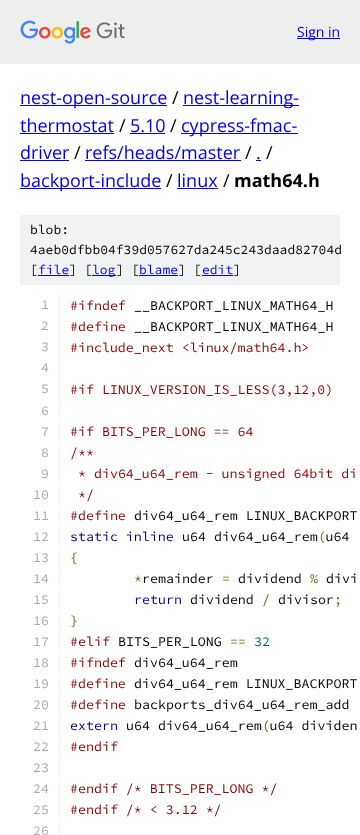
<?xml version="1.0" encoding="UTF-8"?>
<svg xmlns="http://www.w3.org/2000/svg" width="360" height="835">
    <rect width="100%" height="100%" fill="#FFFFFF"/>
    <rect x="0" y="0" width="360" height="64" fill="#EEEEEE"/>
    <image x="20" y="20" width="105" height="24" href="img_01.png"/>
    <rect x="297" y="38" width="43" height="1" fill="#0000EE"/>
    <text x="297" y="37" font-family="Open Sans" font-size="14" fill="#0000EE">Sign in</text>
    <rect x="20" y="105" width="147" height="1" fill="#0000EE"/>
    <text x="20" y="104" font-family="Open Sans" font-size="18" fill="#0000EE">nest-open-source</text>
    <text x="172" y="104" font-family="Open Sans" font-size="18" fill="#000000">/</text>
    <rect x="183" y="105" width="116" height="1" fill="#0000EE"/>
    <text x="183" y="104" font-family="Open Sans" font-size="18" fill="#0000EE">nest-learning-</text>
    <text x="20" y="132" font-family="Open Sans" font-size="18" fill="#0000EE">thermostat</text>
    <rect x="20" y="133" width="94" height="1" fill="#0000EE"/>
    <text x="119" y="132" font-family="Open Sans" font-size="18" fill="#000000">/</text>
    <text x="130" y="132" font-family="Open Sans" font-size="18" fill="#0000EE">5.10</text>
    <rect x="130" y="133" width="35" height="1" fill="#0000EE"/>
    <text x="170" y="132" font-family="Open Sans" font-size="18" fill="#000000">/</text>
    <rect x="181" y="133" width="117" height="1" fill="#0000EE"/>
    <text x="181" y="132" font-family="Open Sans" font-size="18" fill="#0000EE">cypress-fmac-</text>
    <text x="20" y="159" font-family="Open Sans" font-size="18" fill="#0000EE">driver</text>
    <rect x="20" y="160" width="49" height="1" fill="#0000EE"/>
    <text x="74" y="159" font-family="Open Sans" font-size="18" fill="#000000">/</text>
    <text x="85" y="159" font-family="Open Sans" font-size="18" fill="#0000EE">refs/heads/master</text>
    <rect x="85" y="160" width="156" height="1" fill="#0000EE"/>
    <text x="245" y="159" font-family="Open Sans" font-size="18" fill="#000000">/</text>
    <text x="256" y="159" font-family="Open Sans" font-size="18" fill="#0000EE">.</text>
    <rect x="256" y="160" width="5" height="1" fill="#0000EE"/>
    <text x="266" y="159" font-family="Open Sans" font-size="18" fill="#000000">/</text>
    <rect x="20" y="188" width="141" height="1" fill="#0000EE"/>
    <text x="20" y="187" font-family="Open Sans" font-size="18" fill="#0000EE">backport-include</text>
    <text x="166" y="187" font-family="Open Sans" font-size="18" fill="#000000">/</text>
    <text x="177" y="187" font-family="Open Sans" font-size="18" fill="#0000EE">linux</text>
    <rect x="177" y="188" width="41" height="1" fill="#0000EE"/>
    <text x="223" y="187" font-family="Open Sans" font-size="18" fill="#000000">/</text>
    <text x="234" y="187" font-family="Open Sans" font-size="18" font-weight="700" fill="#000000">math64.h</text>
    <rect x="20" y="215" width="320" height="70" fill="#F1F2F3"/>
    <text font-family="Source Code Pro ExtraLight" font-size="13" font-weight="200" fill="#000000">
        <tspan x="30" y="234">blob:</tspan>
        <tspan x="30" y="254">4aeb0dfbb04f39d057627da245c243daad82704d</tspan>
        <tspan x="30" y="274">[</tspan>
    </text>
    <text x="38" y="274" font-family="Source Code Pro ExtraLight" font-size="13" font-weight="200" fill="#0000EE">file</text>
    <rect x="38" y="275" width="31" height="1" fill="#0000EE"/>
    <text x="69" y="274" font-family="Source Code Pro ExtraLight" font-size="13" font-weight="200" fill="#000000">] [</text>
    <rect x="92" y="275" width="24" height="1" fill="#0000EE"/>
    <text x="92" y="274" font-family="Source Code Pro ExtraLight" font-size="13" font-weight="200" fill="#0000EE">log</text>
    <text x="116" y="274" font-family="Source Code Pro ExtraLight" font-size="13" font-weight="200" fill="#000000">] [</text>
    <text x="139" y="274" font-family="Source Code Pro ExtraLight" font-size="13" font-weight="200" fill="#0000EE">blame</text>
    <rect x="139" y="275" width="39" height="1" fill="#0000EE"/>
    <text x="178" y="274" font-family="Source Code Pro ExtraLight" font-size="13" font-weight="200" fill="#000000">] [</text>
    <text x="202" y="274" font-family="Source Code Pro ExtraLight" font-size="13" font-weight="200" fill="#0000EE">edit</text>
    <rect x="202" y="275" width="31" height="1" fill="#0000EE"/>
    <text x="233" y="274" font-family="Source Code Pro ExtraLight" font-size="13" font-weight="200" fill="#000000">]</text>
    <rect x="59" y="295" width="1" height="105" fill="#F1F2F3"/>
    <text x="41" y="309" font-family="Source Code Pro ExtraLight" font-size="13.3" font-weight="200" fill="#AAAAAA">1</text>
    <text x="70" y="310" font-family="Source Code Pro ExtraLight" font-size="13.3" font-weight="200" fill="#880000">#ifndef</text>
    <text x="134" y="310" font-family="Source Code Pro ExtraLight" font-size="13.3" font-weight="200" fill="#000000">__BACKPORT_LINUX_MATH64_H</text>
    <text x="41" y="330" font-family="Source Code Pro ExtraLight" font-size="13.3" font-weight="200" fill="#AAAAAA">2</text>
    <text x="70" y="331" font-family="Source Code Pro ExtraLight" font-size="13.3" font-weight="200" fill="#880000">#define</text>
    <text x="134" y="331" font-family="Source Code Pro ExtraLight" font-size="13.3" font-weight="200" fill="#000000">__BACKPORT_LINUX_MATH64_H</text>
    <text x="41" y="351" font-family="Source Code Pro ExtraLight" font-size="13.3" font-weight="200" fill="#AAAAAA">3</text>
    <text x="70" y="352" font-family="Source Code Pro ExtraLight" font-size="13.3" font-weight="200" fill="#880000">#include_next &lt;linux/math64.h&gt;</text>
    <text font-family="Source Code Pro ExtraLight" font-size="13.3" font-weight="200" fill="#AAAAAA">
        <tspan x="41" y="372">4</tspan>
        <tspan x="41" y="393">5</tspan>
    </text>
    <text x="70" y="394" font-family="Source Code Pro ExtraLight" font-size="13.3" font-weight="200" fill="#880000">#if LINUX_VERSION_IS_LESS(3,12,0)</text>
    <rect x="59" y="401" width="1" height="20" fill="#F1F2F3"/>
    <text x="41" y="415" font-family="Source Code Pro ExtraLight" font-size="13.3" font-weight="200" fill="#AAAAAA">6</text>
    <rect x="59" y="422" width="1" height="20" fill="#F1F2F3"/>
    <text x="41" y="436" font-family="Source Code Pro ExtraLight" font-size="13.3" font-weight="200" fill="#AAAAAA">7</text>
    <text x="70" y="436" font-family="Source Code Pro ExtraLight" font-size="13.3" font-weight="200" fill="#880000">#if BITS_PER_LONG == 64</text>
    <rect x="59" y="443" width="1" height="20" fill="#F1F2F3"/>
    <text x="41" y="457" font-family="Source Code Pro ExtraLight" font-size="13.3" font-weight="200" fill="#AAAAAA">8</text>
    <text x="70" y="457" font-family="Source Code Pro ExtraLight" font-size="13.3" font-weight="200" fill="#880000">/**</text>
    <rect x="59" y="464" width="1" height="20" fill="#F1F2F3"/>
    <text x="41" y="478" font-family="Source Code Pro ExtraLight" font-size="13.3" font-weight="200" fill="#AAAAAA">9</text>
    <text x="78" y="478" font-family="Source Code Pro ExtraLight" font-size="13.3" font-weight="200" fill="#880000">* div64_u64_rem - unsigned 64bit di</text>
    <rect x="59" y="485" width="1" height="20" fill="#F1F2F3"/>
    <text x="33" y="499" font-family="Source Code Pro ExtraLight" font-size="13.3" font-weight="200" fill="#AAAAAA">10</text>
    <text x="78" y="499" font-family="Source Code Pro ExtraLight" font-size="13.3" font-weight="200" fill="#880000">*/</text>
    <rect x="59" y="506" width="1" height="20" fill="#F1F2F3"/>
    <text x="33" y="520" font-family="Source Code Pro ExtraLight" font-size="13.3" font-weight="200" fill="#AAAAAA">11</text>
    <text x="70" y="520" font-family="Source Code Pro ExtraLight" font-size="13.3" font-weight="200" fill="#880000">#define</text>
    <text x="134" y="520" font-family="Source Code Pro ExtraLight" font-size="13.3" font-weight="200" fill="#000000">div64_u64_rem LINUX_BACKPORT</text>
    <rect x="59" y="527" width="1" height="20" fill="#F1F2F3"/>
    <text x="33" y="541" font-family="Source Code Pro ExtraLight" font-size="13.3" font-weight="200" fill="#AAAAAA">12</text>
    <text x="70" y="541" font-family="Source Code Pro ExtraLight" font-size="13.3" font-weight="200" fill="#000088">static inline</text>
    <text x="182" y="541" font-family="Source Code Pro ExtraLight" font-size="13.3" font-weight="200" fill="#000000">u64 div64_u64_rem u64</text>
    <text x="318" y="541" font-family="Source Code Pro ExtraLight" font-size="13.3" font-weight="200" fill="#666600">(</text>
    <rect x="59" y="548" width="1" height="20" fill="#F1F2F3"/>
    <text x="33" y="562" font-family="Source Code Pro ExtraLight" font-size="13.3" font-weight="200" fill="#AAAAAA">13</text>
    <text x="70" y="562" font-family="Source Code Pro ExtraLight" font-size="13.3" font-weight="200" fill="#666600">{</text>
    <rect x="59" y="569" width="1" height="20" fill="#F1F2F3"/>
    <text x="33" y="583" font-family="Source Code Pro ExtraLight" font-size="13.3" font-weight="200" fill="#AAAAAA">14</text>
    <text x="134" y="583" font-family="Source Code Pro ExtraLight" font-size="13.3" font-weight="200" fill="#666600">*</text>
    <text x="142" y="583" font-family="Source Code Pro ExtraLight" font-size="13.3" font-weight="200" fill="#000000">remainder</text>
    <text x="222" y="583" font-family="Source Code Pro ExtraLight" font-size="13.3" font-weight="200" fill="#666600">=</text>
    <text x="238" y="583" font-family="Source Code Pro ExtraLight" font-size="13.3" font-weight="200" fill="#000000">dividend</text>
    <text x="310" y="583" font-family="Source Code Pro ExtraLight" font-size="13.3" font-weight="200" fill="#666600">%</text>
    <text x="326" y="583" font-family="Source Code Pro ExtraLight" font-size="13.3" font-weight="200" fill="#000000">divi</text>
    <rect x="59" y="590" width="1" height="20" fill="#F1F2F3"/>
    <text x="33" y="604" font-family="Source Code Pro ExtraLight" font-size="13.3" font-weight="200" fill="#AAAAAA">15</text>
    <text x="134" y="604" font-family="Source Code Pro ExtraLight" font-size="13.3" font-weight="200" fill="#000088">return</text>
    <text x="190" y="604" font-family="Source Code Pro ExtraLight" font-size="13.3" font-weight="200" fill="#000000">dividend</text>
    <text x="262" y="604" font-family="Source Code Pro ExtraLight" font-size="13.3" font-weight="200" fill="#666600">/</text>
    <text x="278" y="604" font-family="Source Code Pro ExtraLight" font-size="13.3" font-weight="200" fill="#000000">divisor</text>
    <text x="334" y="604" font-family="Source Code Pro ExtraLight" font-size="13.3" font-weight="200" fill="#666600">;</text>
    <rect x="59" y="611" width="1" height="20" fill="#F1F2F3"/>
    <text x="33" y="625" font-family="Source Code Pro ExtraLight" font-size="13.3" font-weight="200" fill="#AAAAAA">16</text>
    <text x="70" y="625" font-family="Source Code Pro ExtraLight" font-size="13.3" font-weight="200" fill="#666600">}</text>
    <rect x="59" y="632" width="1" height="20" fill="#F1F2F3"/>
    <text x="33" y="646" font-family="Source Code Pro ExtraLight" font-size="13.3" font-weight="200" fill="#AAAAAA">17</text>
    <text x="70" y="646" font-family="Source Code Pro ExtraLight" font-size="13.3" font-weight="200" fill="#880000">#elif</text>
    <text x="118" y="646" font-family="Source Code Pro ExtraLight" font-size="13.3" font-weight="200" fill="#000000">BITS_PER_LONG</text>
    <text x="230" y="646" font-family="Source Code Pro ExtraLight" font-size="13.3" font-weight="200" fill="#666600">==</text>
    <text x="254" y="646" font-family="Source Code Pro ExtraLight" font-size="13.3" font-weight="200" fill="#006666">32</text>
    <rect x="59" y="653" width="1" height="20" fill="#F1F2F3"/>
    <text x="33" y="667" font-family="Source Code Pro ExtraLight" font-size="13.3" font-weight="200" fill="#AAAAAA">18</text>
    <text x="70" y="667" font-family="Source Code Pro ExtraLight" font-size="13.3" font-weight="200" fill="#880000">#ifndef</text>
    <text x="134" y="667" font-family="Source Code Pro ExtraLight" font-size="13.3" font-weight="200" fill="#000000">div64_u64_rem</text>
    <rect x="59" y="674" width="1" height="20" fill="#F1F2F3"/>
    <text x="33" y="688" font-family="Source Code Pro ExtraLight" font-size="13.3" font-weight="200" fill="#AAAAAA">19</text>
    <text x="70" y="688" font-family="Source Code Pro ExtraLight" font-size="13.3" font-weight="200" fill="#880000">#define</text>
    <text x="134" y="688" font-family="Source Code Pro ExtraLight" font-size="13.3" font-weight="200" fill="#000000">div64_u64_rem LINUX_BACKPORT</text>
    <rect x="59" y="695" width="1" height="20" fill="#F1F2F3"/>
    <text x="33" y="709" font-family="Source Code Pro ExtraLight" font-size="13.3" font-weight="200" fill="#AAAAAA">20</text>
    <text x="70" y="709" font-family="Source Code Pro ExtraLight" font-size="13.3" font-weight="200" fill="#880000">#define</text>
    <text x="134" y="709" font-family="Source Code Pro ExtraLight" font-size="13.3" font-weight="200" fill="#000000">backports_div64_u64_rem_add</text>
    <rect x="59" y="716" width="1" height="20" fill="#F1F2F3"/>
    <text x="33" y="730" font-family="Source Code Pro ExtraLight" font-size="13.3" font-weight="200" fill="#AAAAAA">21</text>
    <text x="126" y="730" font-family="Source Code Pro ExtraLight" font-size="13.3" font-weight="200" fill="#000000">u64 div64_u64_rem u64 dividen</text>
    <text x="70" y="730" font-family="Source Code Pro ExtraLight" font-size="13.3" font-weight="200" fill="#000088">extern</text>
    <text x="262" y="730" font-family="Source Code Pro ExtraLight" font-size="13.3" font-weight="200" fill="#666600">(</text>
    <rect x="59" y="737" width="1" height="20" fill="#F1F2F3"/>
    <text x="33" y="751" font-family="Source Code Pro ExtraLight" font-size="13.3" font-weight="200" fill="#AAAAAA">22</text>
    <text x="70" y="751" font-family="Source Code Pro ExtraLight" font-size="13.3" font-weight="200" fill="#880000">#endif</text>
    <rect x="59" y="758" width="1" height="20" fill="#F1F2F3"/>
    <text x="33" y="772" font-family="Source Code Pro ExtraLight" font-size="13.3" font-weight="200" fill="#AAAAAA">23</text>
    <rect x="59" y="779" width="1" height="20" fill="#F1F2F3"/>
    <text x="33" y="793" font-family="Source Code Pro ExtraLight" font-size="13.3" font-weight="200" fill="#AAAAAA">24</text>
    <text x="70" y="793" font-family="Source Code Pro ExtraLight" font-size="13.3" font-weight="200" fill="#880000">#endif /* BITS_PER_LONG */</text>
    <rect x="59" y="800" width="1" height="20" fill="#F1F2F3"/>
    <text x="33" y="814" font-family="Source Code Pro ExtraLight" font-size="13.3" font-weight="200" fill="#AAAAAA">25</text>
    <text x="70" y="814" font-family="Source Code Pro ExtraLight" font-size="13.3" font-weight="200" fill="#880000">#endif /* &lt; 3.12 */</text>
    <rect x="59" y="821" width="1" height="14" fill="#F1F2F3"/>
    <text x="33" y="835" font-family="Source Code Pro ExtraLight" font-size="13.3" font-weight="200" fill="#AAAAAA">26</text>
</svg>
